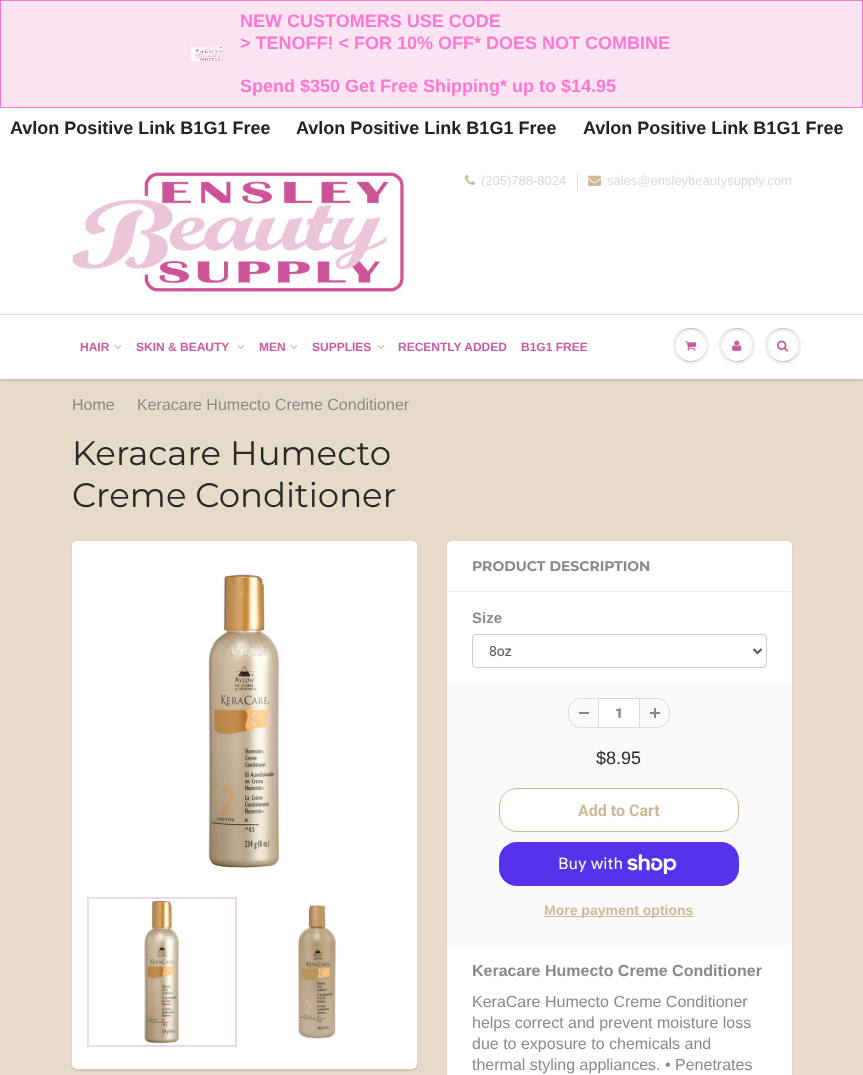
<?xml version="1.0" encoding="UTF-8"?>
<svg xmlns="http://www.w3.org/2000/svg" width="863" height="1075">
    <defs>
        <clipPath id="clip1"><rect x="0" y="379" width="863" height="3"/></clipPath>
        <filter id="blur1" x="-50%" y="-200%" width="200%" height="500%"><feGaussianBlur stdDeviation="1"/></filter>
    </defs>
    <rect width="100%" height="100%" fill="#FFFFFF"/>
    <rect x="0.5" y="0.5" width="862" height="107" fill="#FCE4F3" stroke="#F97AD3"/>
    <image x="191" y="47" width="32" height="14" href="img_01.png"/>
    <text font-family="Liberation Sans" font-size="18" font-weight="700" fill="#FD79D1">
        <tspan x="240" y="27">NEW CUSTOMERS USE CODE</tspan>
        <tspan x="240" y="49">&gt; TENOFF! &lt; FOR 10% OFF* DOES NOT COMBINE</tspan>
    </text>
    <text x="240" y="92" font-family="Liberation Sans" font-size="18" font-weight="700" fill="#FD79D1">Spend $350 Get Free Shipping* up to $14.95</text>
    <text x="10" y="134" font-family="Liberation Sans" font-size="18" font-weight="700" fill="#202223">Avlon Positive Link B1G1 Free</text>
    <text x="296" y="134" font-family="Liberation Sans" font-size="18" font-weight="700" fill="#202223">Avlon Positive Link B1G1 Free</text>
    <text x="583" y="134" font-family="Liberation Sans" font-size="18" font-weight="700" fill="#202223">Avlon Positive Link B1G1 Free</text>
    <image x="72" y="172" width="333" height="120" href="img_02.png"/>
    <image x="465" y="174" width="11" height="11" href="img_03.png"/>
    <text x="481" y="185" font-family="Liberation Sans" font-size="13" fill="#D7DBDB">(205)788-8024</text>
    <rect x="577" y="172" width="1" height="19" fill="#F3D6E5"/>
    <image x="588" y="175" width="13" height="11" href="img_04.png"/>
    <text x="607" y="185" font-family="Liberation Sans" font-size="13" fill="#D7DBDB">sales@ensleybeautysupply.com</text>
    <rect x="0" y="379" width="863" height="696" fill="#E6DAC8"/>
    <g clip-path="url(#clip1)">
        <rect x="0" y="316" width="863" height="65" fill="#0B191C" fill-opacity="0.12" filter="url(#blur1)"/>
    </g>
    <rect x="0" y="314" width="863" height="1" fill="#F3D6E5"/>
    <text x="80" y="351" font-family="Liberation Sans" font-size="12" font-weight="700" fill="#C95AA0">HAIR</text>
    <image x="114" y="345" width="8" height="4" href="img_05.png"/>
    <text x="136" y="351" font-family="Liberation Sans" font-size="12" font-weight="700" fill="#C95AA0">SKIN &amp; BEAUTY</text>
    <image x="237" y="345" width="8" height="4" href="img_05.png"/>
    <text x="259" y="351" font-family="Liberation Sans" font-size="12" font-weight="700" fill="#C95AA0">MEN</text>
    <image x="290" y="345" width="8" height="4" href="img_05.png"/>
    <text x="312" y="351" font-family="Liberation Sans" font-size="12" font-weight="700" fill="#C95AA0">SUPPLIES</text>
    <image x="377" y="345" width="8" height="4" href="img_05.png"/>
    <text x="398" y="351" font-family="Liberation Sans" font-size="12" font-weight="700" fill="#C95AA0">RECENTLY ADDED</text>
    <text x="521" y="351" font-family="Liberation Sans" font-size="12" font-weight="700" fill="#C95AA0">B1G1 FREE</text>
    <circle cx="691" cy="346" r="18" fill="#EDEFEF"/>
    <path d="M 691 329 C 703 329 709 337.5 709 346.5 C 709 343 708 339 706 336 C 696 321 672.5 328.5 673 346.5 C 673 337.5 679 329 691 329 Z" fill="#C9CBCB"/>
    <path d="M 706 346.5 C 705.5 365.5 676.5 365.5 676 346.5 C 676 349.5 677 353 678.5 355.5 C 687 368 706.5 361.5 706 346.5 Z" fill="#C9CBCB"/>
    <circle cx="691" cy="346" r="15" fill="#FFFFFF"/>
    <path d="M 691 332 C 701 332 706 339 706 346.5 C 706 343.5 705 340 703.5 337.5 C 695 325 675.5 331.5 676 346.5 C 676 339 681 332 691 332 Z" fill="#FFFFFF"/>
    <image x="685" y="341" width="12" height="10" href="img_06.png"/>
    <circle cx="737" cy="346" r="18" fill="#EDEFEF"/>
    <path d="M 737 329 C 749 329 755 337.5 755 346.5 C 755 343 754 339 752 336 C 742 321 718.5 328.5 719 346.5 C 719 337.5 725 329 737 329 Z" fill="#C9CBCB"/>
    <path d="M 752 346.5 C 751.5 365.5 722.5 365.5 722 346.5 C 721.5 361.5 741 368 749.5 355.5 C 751 353 752 349.5 752 346.5 Z" fill="#C9CBCB"/>
    <circle cx="737" cy="346" r="15" fill="#FFFFFF"/>
    <path d="M 737 332 C 747 332 752 339 752 346.5 C 752 343.5 751 340 749.5 337.5 C 741 325 721.5 331.5 722 346.5 C 722 339 727 332 737 332 Z" fill="#FFFFFF"/>
    <image x="732" y="340" width="10" height="11" href="img_07.png"/>
    <circle cx="783" cy="346" r="18" fill="#EDEFEF"/>
    <path d="M 783 329 C 795 329 801 337.5 801 346.5 C 801 343 800 339 798 336 C 788 321 764.5 328.5 765 346.5 C 765 337.5 771 329 783 329 Z" fill="#C9CBCB"/>
    <path d="M 798 346.5 C 797.5 365.5 768.5 365.5 768 346.5 C 767.5 361.5 787 368 795.5 355.5 C 797 353 798 349.5 798 346.5 Z" fill="#C9CBCB"/>
    <circle cx="783" cy="346" r="15" fill="#FFFFFF"/>
    <path d="M 783 332 C 793 332 798 339 798 346.5 C 798 343.5 797 340 795.5 337.5 C 787 325 767.5 331.5 768 346.5 C 768 339 773 332 783 332 Z" fill="#FFFFFF"/>
    <image x="777" y="340" width="12" height="12" href="img_08.png"/>
    <text x="72" y="410" font-family="Liberation Sans" font-size="16" fill="#898989">Home</text>
    <text x="137" y="410" font-family="Liberation Sans" font-size="16" fill="#898989">Keracare Humecto Creme Conditioner</text>
    <text font-family="Montserrat" font-size="34" fill="#282827">
        <tspan x="72" y="465">Keracare Humecto</tspan>
        <tspan x="72" y="507">Creme Conditioner</tspan>
    </text>
    <rect x="72" y="543" width="345" height="528" rx="5" fill="#0B191C" fill-opacity="0.1" filter="url(#blur1)"/>
    <rect x="72" y="541" width="345" height="528" rx="5" fill="#FFFFFF"/>
    <image x="208" y="574" width="74" height="295" href="img_09.png"/>
    <rect x="88" y="898" width="148" height="148" fill="none" stroke="#F3D6E5" stroke-width="2"/>
    <image x="144" y="899" width="36" height="145" href="img_10.png"/>
    <image x="296" y="904" width="42" height="136" href="img_11.png"/>
    <rect x="447" y="543" width="345" height="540" rx="5" fill="#0B191C" fill-opacity="0.1" filter="url(#blur1)"/>
    <rect x="447" y="541" width="345" height="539" rx="5" fill="#FFFFFF"/>
    <rect x="447" y="591" width="345" height="1" fill="#EFEFEF"/>
    <text x="472" y="571" font-family="Montserrat" font-size="14" font-weight="700" fill="#898989">PRODUCT DESCRIPTION</text>
    <text x="472" y="623" font-family="Liberation Sans" font-size="15" font-weight="700" fill="#898989">Size</text>
    <rect x="472.5" y="634.5" width="294" height="33" rx="3.5" fill="none" stroke="#CCCCCC"/>
    <path d="M 753.5 649 L 757.5 653 L 761.5 649" fill="none" stroke="#555555" stroke-width="2"/>
    <text x="489" y="656" font-family="Roboto" font-size="14" fill="#555555">8oz</text>
    <rect x="447" y="683" width="345" height="262" fill="#FAFAFA"/>
    <rect x="579" y="712" width="10" height="2" fill="#898989"/>
    <path d="M 581 698 H 598 V 728 H 581 C 574 728 568 722 568 715 V 711 C 568 704 574 698 581 698 Z M 581 699 H 598 V 727 H 581 C 574.5 727 569 721.5 569 715 V 711 C 569 704.5 574.5 699 581 699 Z" fill="#D7DBDB" fill-rule="evenodd"/>
    <rect x="598.5" y="698.5" width="41" height="29" fill="#FFFFFF" stroke="#D7DBDB"/>
    <text x="615" y="718" font-family="Roboto" font-size="14" font-weight="900" fill="#898989">1</text>
    <image x="650" y="708" width="10" height="10" href="img_12.png"/>
    <path d="M 640 698 H 657 C 664 698 670 704 670 711 V 715 C 670 722 664 728 657 728 H 640 Z M 640 699 H 657 C 663.5 699 669 704.5 669 711 V 715 C 669 721.5 663.5 727 657 727 H 640 Z" fill="#D7DBDB" fill-rule="evenodd"/>
    <text x="596" y="764" font-family="Liberation Sans" font-size="18" fill="#282827">$8.95</text>
    <rect x="499.5" y="788.5" width="239" height="43" rx="17.5" fill="#FFFFFF" stroke="#CEB898"/>
    <text x="578" y="816" font-family="Roboto" font-size="16" font-weight="700" fill="#CEB898">Add to Cart</text>
    <rect x="499" y="842" width="240" height="44" rx="18" fill="#5433EB"/>
    <text x="558" y="869" font-family="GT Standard" font-size="16" fill="#FFFFFF">Buy with</text>
    <image x="627" y="854" width="50" height="20" href="img_13.png"/>
    <rect x="544" y="916" width="150" height="1" fill="#CEB898"/>
    <text x="544" y="915" font-family="Liberation Sans" font-size="14" font-weight="700" fill="#CEB898">More payment options</text>
    <text x="472" y="976" font-family="Liberation Sans" font-size="16" font-weight="700" fill="#898989">Keracare Humecto Creme Conditioner</text>
    <text font-family="Liberation Sans" font-size="16" fill="#898989">
        <tspan x="472" y="1007">KeraCare Humecto Creme Conditioner</tspan>
        <tspan x="472" y="1028">helps correct and prevent moisture loss</tspan>
        <tspan x="472" y="1049">due to exposure to chemicals and</tspan>
        <tspan x="472" y="1070">thermal styling appliances. • Penetrates</tspan>
    </text>
</svg>
